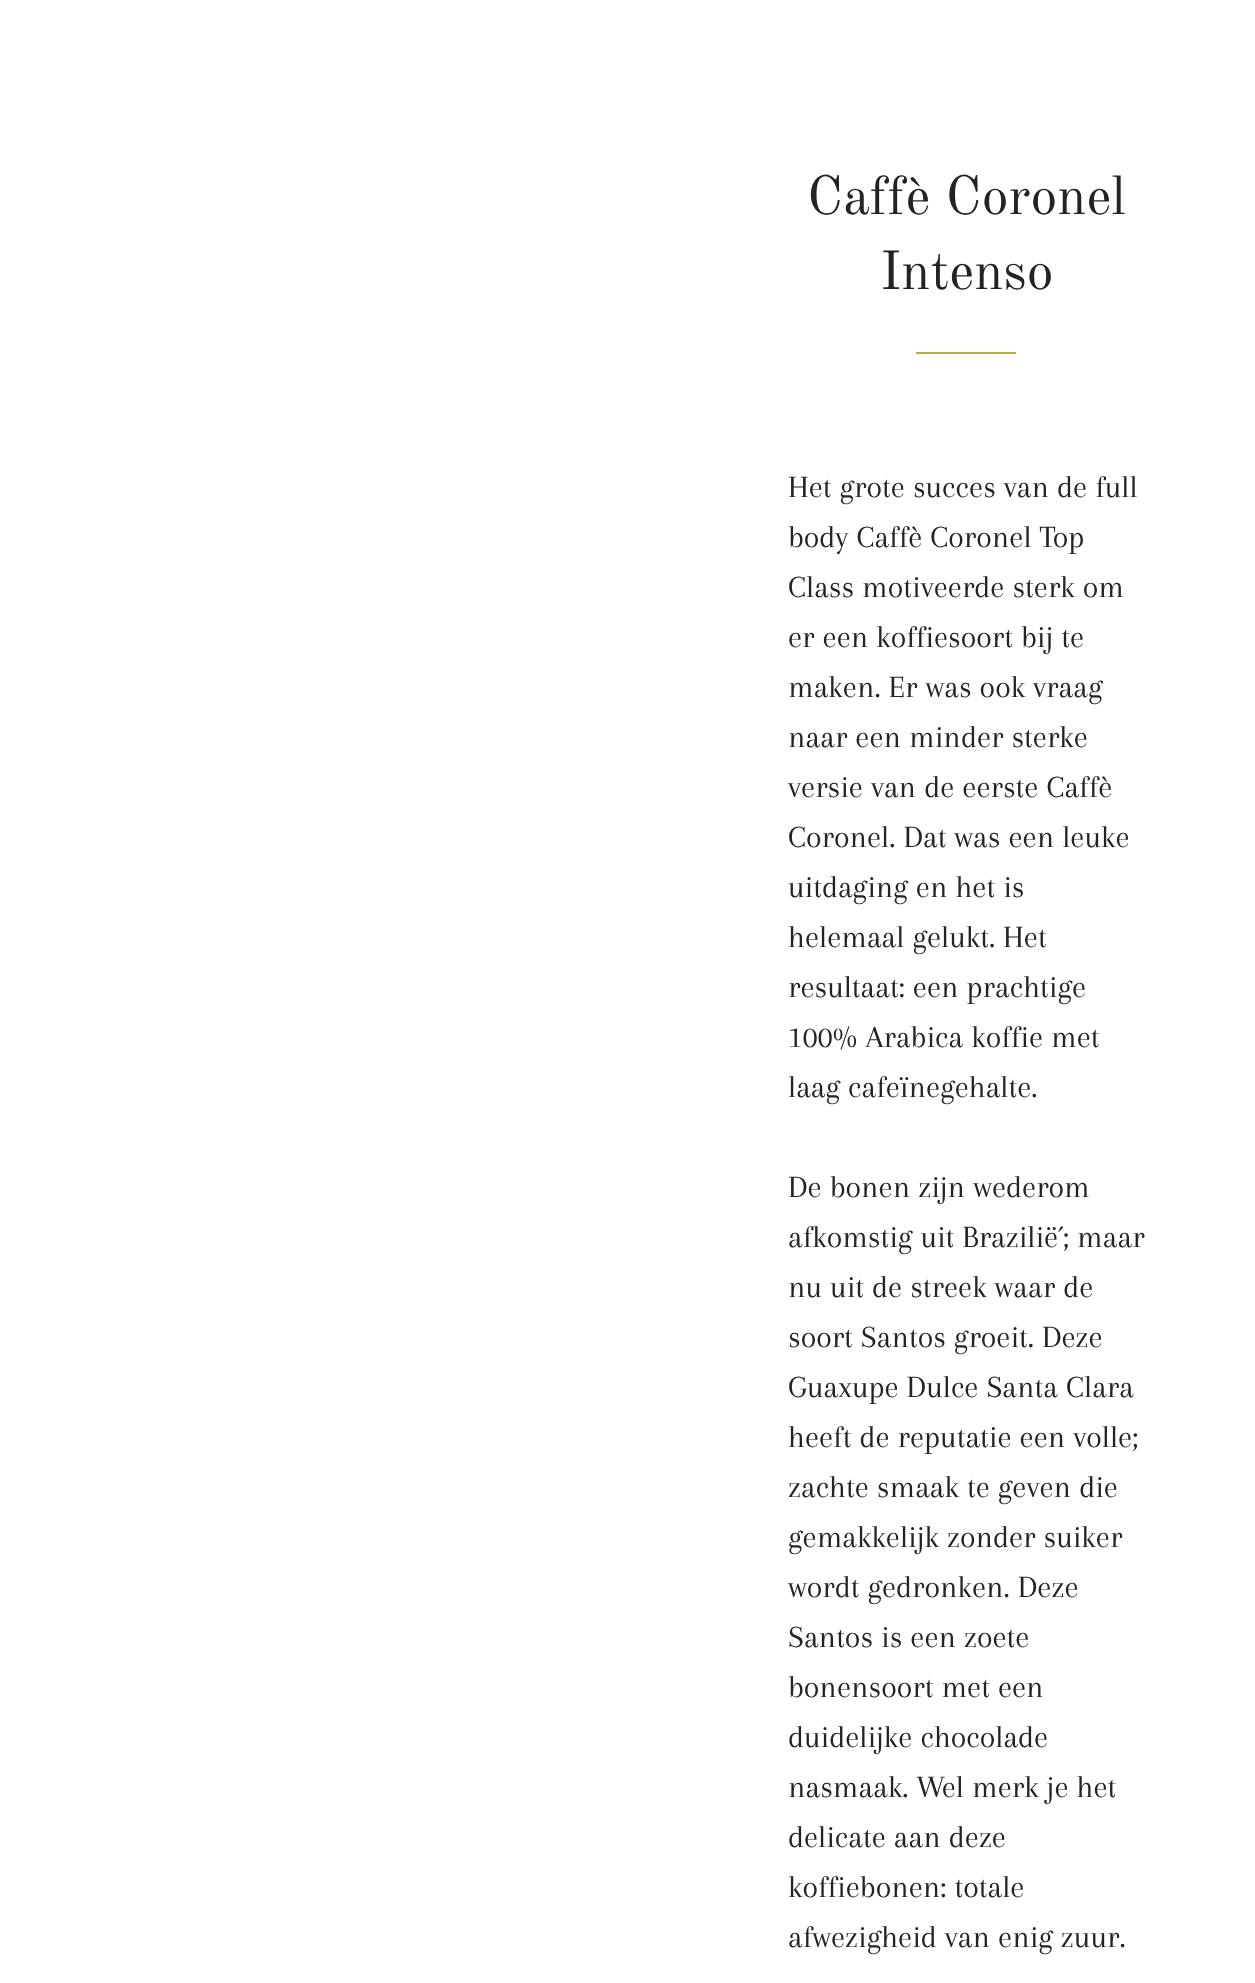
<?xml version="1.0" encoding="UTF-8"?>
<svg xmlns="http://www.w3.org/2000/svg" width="1255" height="1983">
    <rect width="100%" height="100%" fill="#FFFFFF"/>
    <text x="807" y="214" font-family="Old Standard TT" font-size="54" fill="#222323">Caffè Coronel</text>
    <text x="880" y="289" font-family="Old Standard TT" font-size="54" fill="#222323">Intenso</text>
    <rect x="916" y="352" width="100" height="2" fill="#B2AD4B"/>
    <text font-family="Arapey" font-size="32" fill="#222323">
        <tspan x="788" y="497">Het grote succes van de full</tspan>
        <tspan x="788" y="547">body Caffè Coronel Top</tspan>
        <tspan x="788" y="597">Class motiveerde sterk om</tspan>
        <tspan x="788" y="647">er een koffiesoort bij te</tspan>
        <tspan x="788" y="697">maken. Er was ook vraag</tspan>
        <tspan x="788" y="747">naar een minder sterke</tspan>
        <tspan x="788" y="797">versie van de eerste Caffè</tspan>
        <tspan x="788" y="847">Coronel. Dat was een leuke</tspan>
        <tspan x="788" y="897">uitdaging en het is</tspan>
        <tspan x="788" y="947">helemaal gelukt. Het</tspan>
        <tspan x="788" y="997">resultaat: een prachtige</tspan>
        <tspan x="788" y="1047">100% Arabica koffie met</tspan>
        <tspan x="788" y="1097">laag cafeïnegehalte.</tspan>
    </text>
    <text font-family="Arapey" font-size="32" fill="#222323">
        <tspan x="788" y="1197">De bonen zijn wederom</tspan>
        <tspan x="788" y="1247">afkomstig uit Brazilië´; maar</tspan>
        <tspan x="788" y="1297">nu uit de streek waar de</tspan>
        <tspan x="788" y="1347">soort Santos groeit. Deze</tspan>
        <tspan x="788" y="1397">Guaxupe Dulce Santa Clara</tspan>
        <tspan x="788" y="1447">heeft de reputatie een volle;</tspan>
        <tspan x="788" y="1497">zachte smaak te geven die</tspan>
        <tspan x="788" y="1547">gemakkelijk zonder suiker</tspan>
        <tspan x="788" y="1597">wordt gedronken. Deze</tspan>
        <tspan x="788" y="1647">Santos is een zoete</tspan>
        <tspan x="788" y="1697">bonensoort met een</tspan>
        <tspan x="788" y="1747">duidelijke chocolade</tspan>
        <tspan x="788" y="1797">nasmaak. Wel merk je het</tspan>
        <tspan x="788" y="1847">delicate aan deze</tspan>
        <tspan x="788" y="1897">koffiebonen: totale</tspan>
        <tspan x="788" y="1947">afwezigheid van enig zuur.</tspan>
    </text>
</svg>
